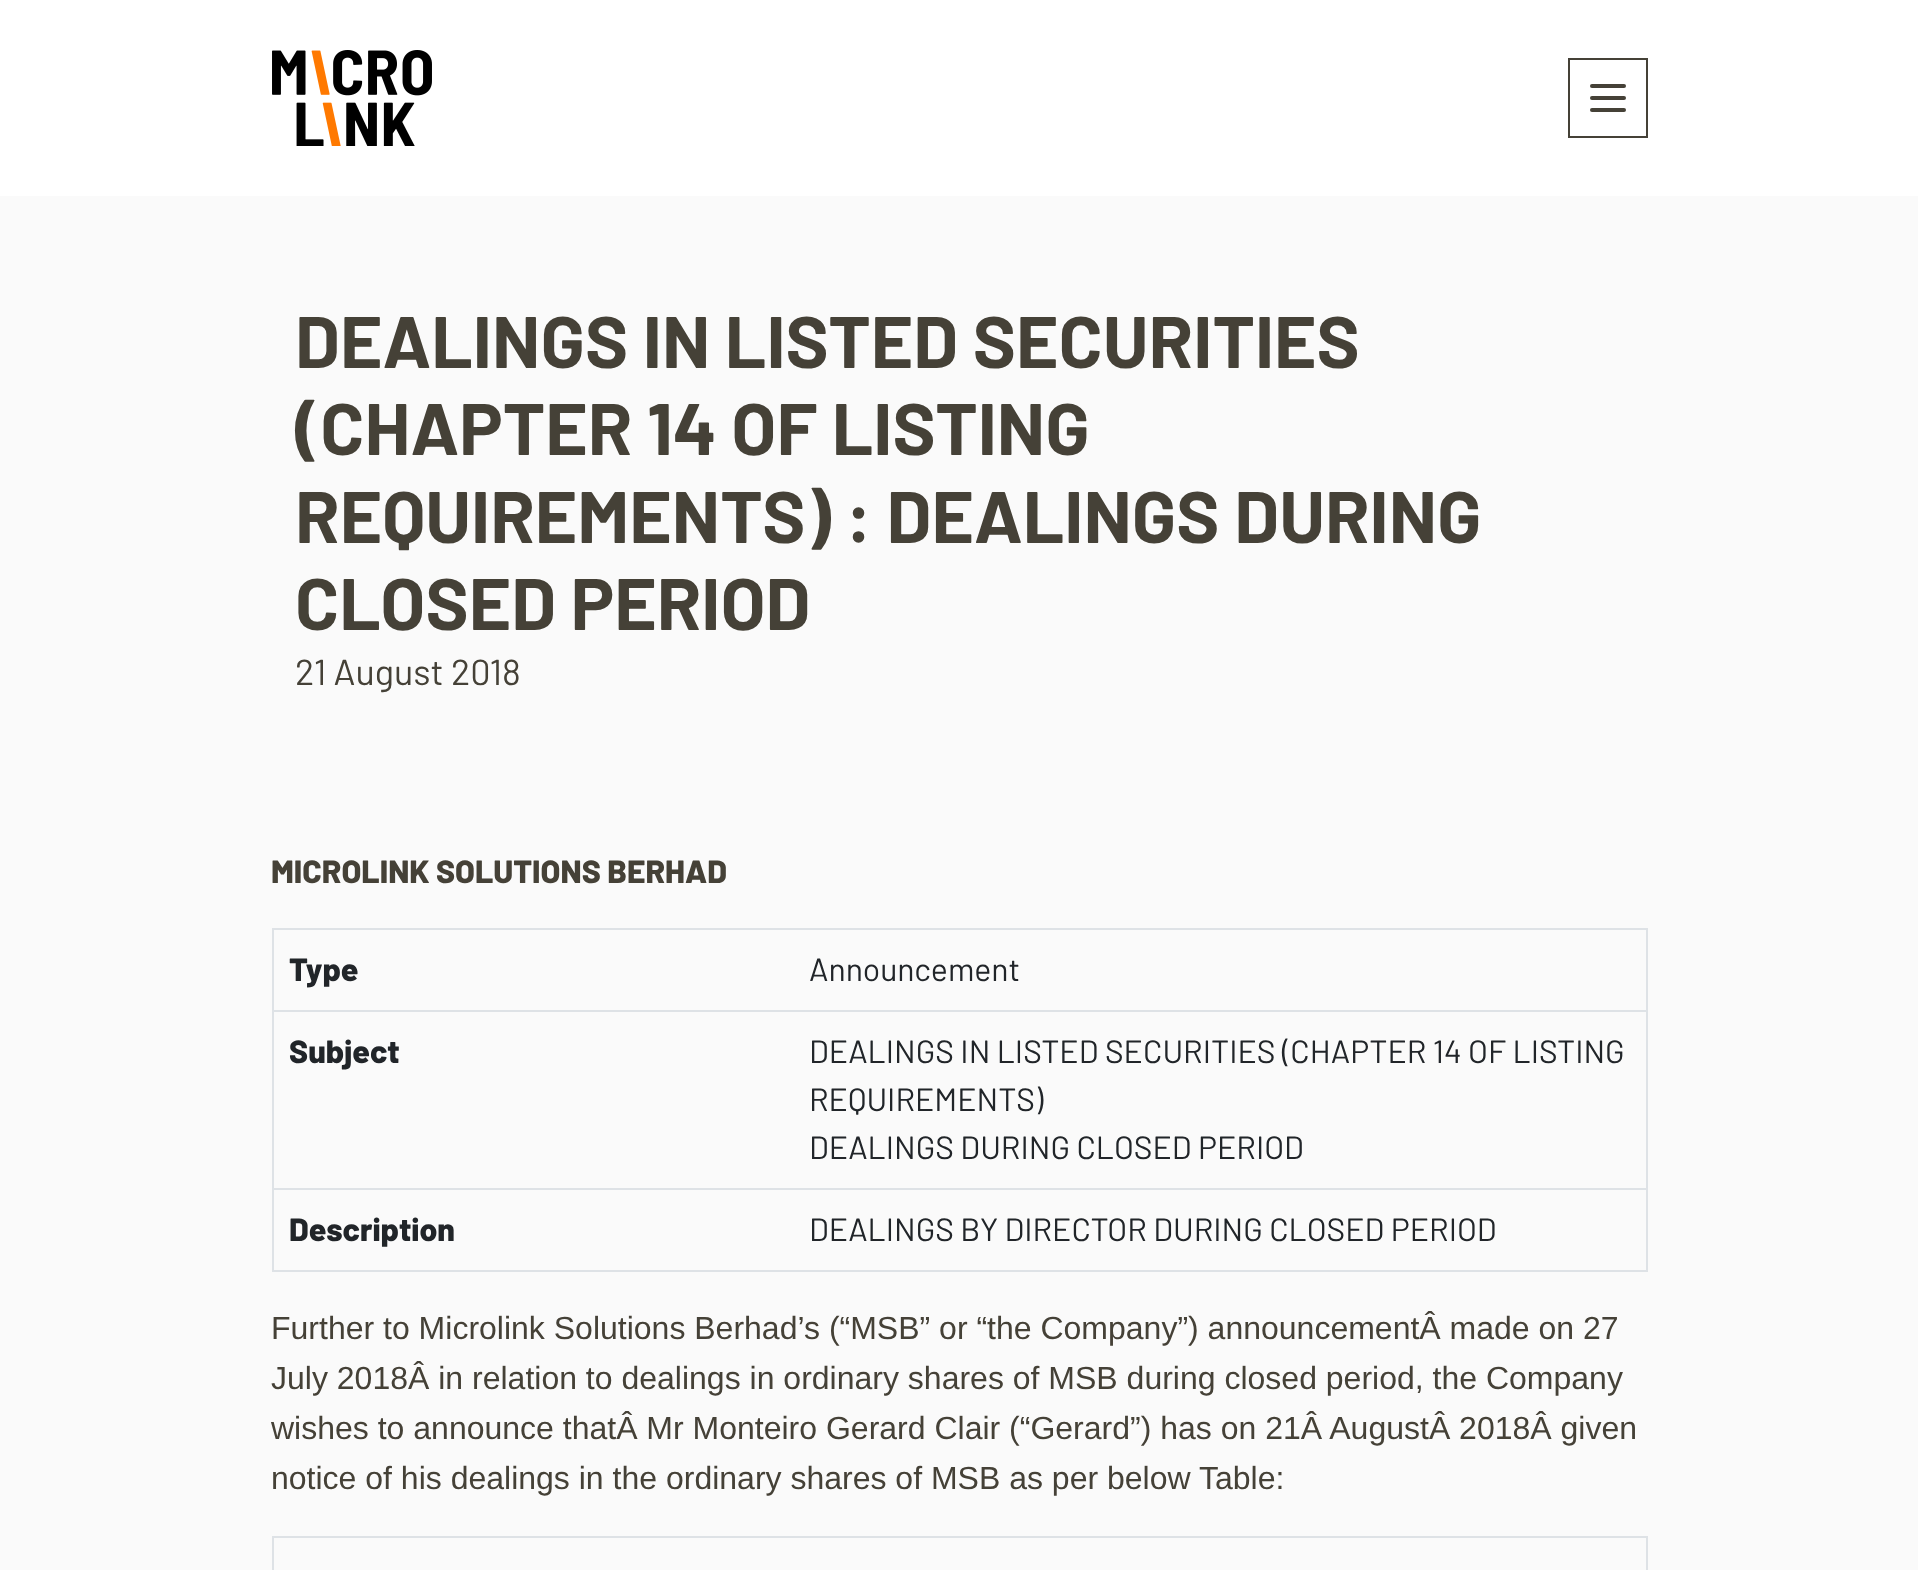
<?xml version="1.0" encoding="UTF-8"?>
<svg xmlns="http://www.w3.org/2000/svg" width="1918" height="1570">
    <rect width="100%" height="100%" fill="#FAFAFA"/>
    <rect x="0" y="0" width="1918" height="196" fill="#FFFFFF"/>
    <image x="272" y="50" width="160" height="96" href="img_01.png"/>
    <rect x="1569" y="59" width="78" height="78" fill="none" stroke="#454137" stroke-width="2"/>
    <rect x="1590" y="84" width="36" height="4" rx="2" fill="#454137"/>
    <rect x="1590" y="96" width="36" height="4" rx="2" fill="#454137"/>
    <rect x="1590" y="108" width="36" height="4" rx="2" fill="#454137"/>
    <text font-family="Barlow" font-size="72.75" font-weight="700" fill="#454137">
        <tspan x="295" y="368">DEALINGS IN LISTED SECURITIES</tspan>
        <tspan x="295" y="455">(CHAPTER 14 OF LISTING</tspan>
        <tspan x="295" y="543">REQUIREMENTS) : DEALINGS DURING</tspan>
        <tspan x="295" y="630">CLOSED PERIOD</tspan>
    </text>
    <text x="295" y="685" font-family="Barlow" font-size="36" fill="#454137">21 August 2018</text>
    <text x="271" y="883" font-family="Barlow" font-size="32" font-weight="800" fill="#454137">MICROLINK SOLUTIONS BERHAD</text>
    <rect x="272" y="928" width="1376" height="2" fill="#DEE2E6"/>
    <rect x="1646" y="928" width="2" height="344" fill="#DEE2E6"/>
    <rect x="272" y="1270" width="1376" height="2" fill="#DEE2E6"/>
    <rect x="272" y="928" width="2" height="344" fill="#DEE2E6"/>
    <text x="289" y="981" font-family="Barlow" font-size="32" font-weight="800" fill="#212529">Type</text>
    <rect x="272" y="1010" width="1376" height="2" fill="#DEE2E6"/>
    <text x="809" y="981" font-family="Barlow" font-size="32" fill="#212529">Announcement</text>
    <text x="289" y="1063" font-family="Barlow" font-size="32" font-weight="800" fill="#212529">Subject</text>
    <rect x="272" y="1188" width="1376" height="2" fill="#DEE2E6"/>
    <text font-family="Barlow" font-size="32" fill="#212529">
        <tspan x="809" y="1063">DEALINGS IN LISTED SECURITIES (CHAPTER 14 OF LISTING</tspan>
        <tspan x="809" y="1111">REQUIREMENTS)</tspan>
        <tspan x="809" y="1159">DEALINGS DURING CLOSED PERIOD</tspan>
    </text>
    <text x="289" y="1241" font-family="Barlow" font-size="32" font-weight="800" fill="#212529">Description</text>
    <text x="809" y="1241" font-family="Barlow" font-size="32" fill="#212529">DEALINGS BY DIRECTOR DURING CLOSED PERIOD</text>
    <text font-family="Liberation Sans" font-size="32" fill="#454137">
        <tspan x="271" y="1339">Further to Microlink Solutions Berhad’s (“MSB” or “the Company”) announcementÂ made on 27</tspan>
        <tspan x="271" y="1389">July 2018Â in relation to dealings in ordinary shares of MSB during closed period, the Company</tspan>
        <tspan x="271" y="1439">wishes to announce thatÂ Mr Monteiro Gerard Clair (“Gerard”) has on 21Â AugustÂ 2018Â given</tspan>
        <tspan x="271" y="1489">notice of his dealings in the ordinary shares of MSB as per below Table:</tspan>
    </text>
    <rect x="272" y="1536" width="1376" height="2" fill="#DEE2E6"/>
    <rect x="1646" y="1536" width="2" height="34" fill="#DEE2E6"/>
    <rect x="272" y="1536" width="2" height="34" fill="#DEE2E6"/>
</svg>
